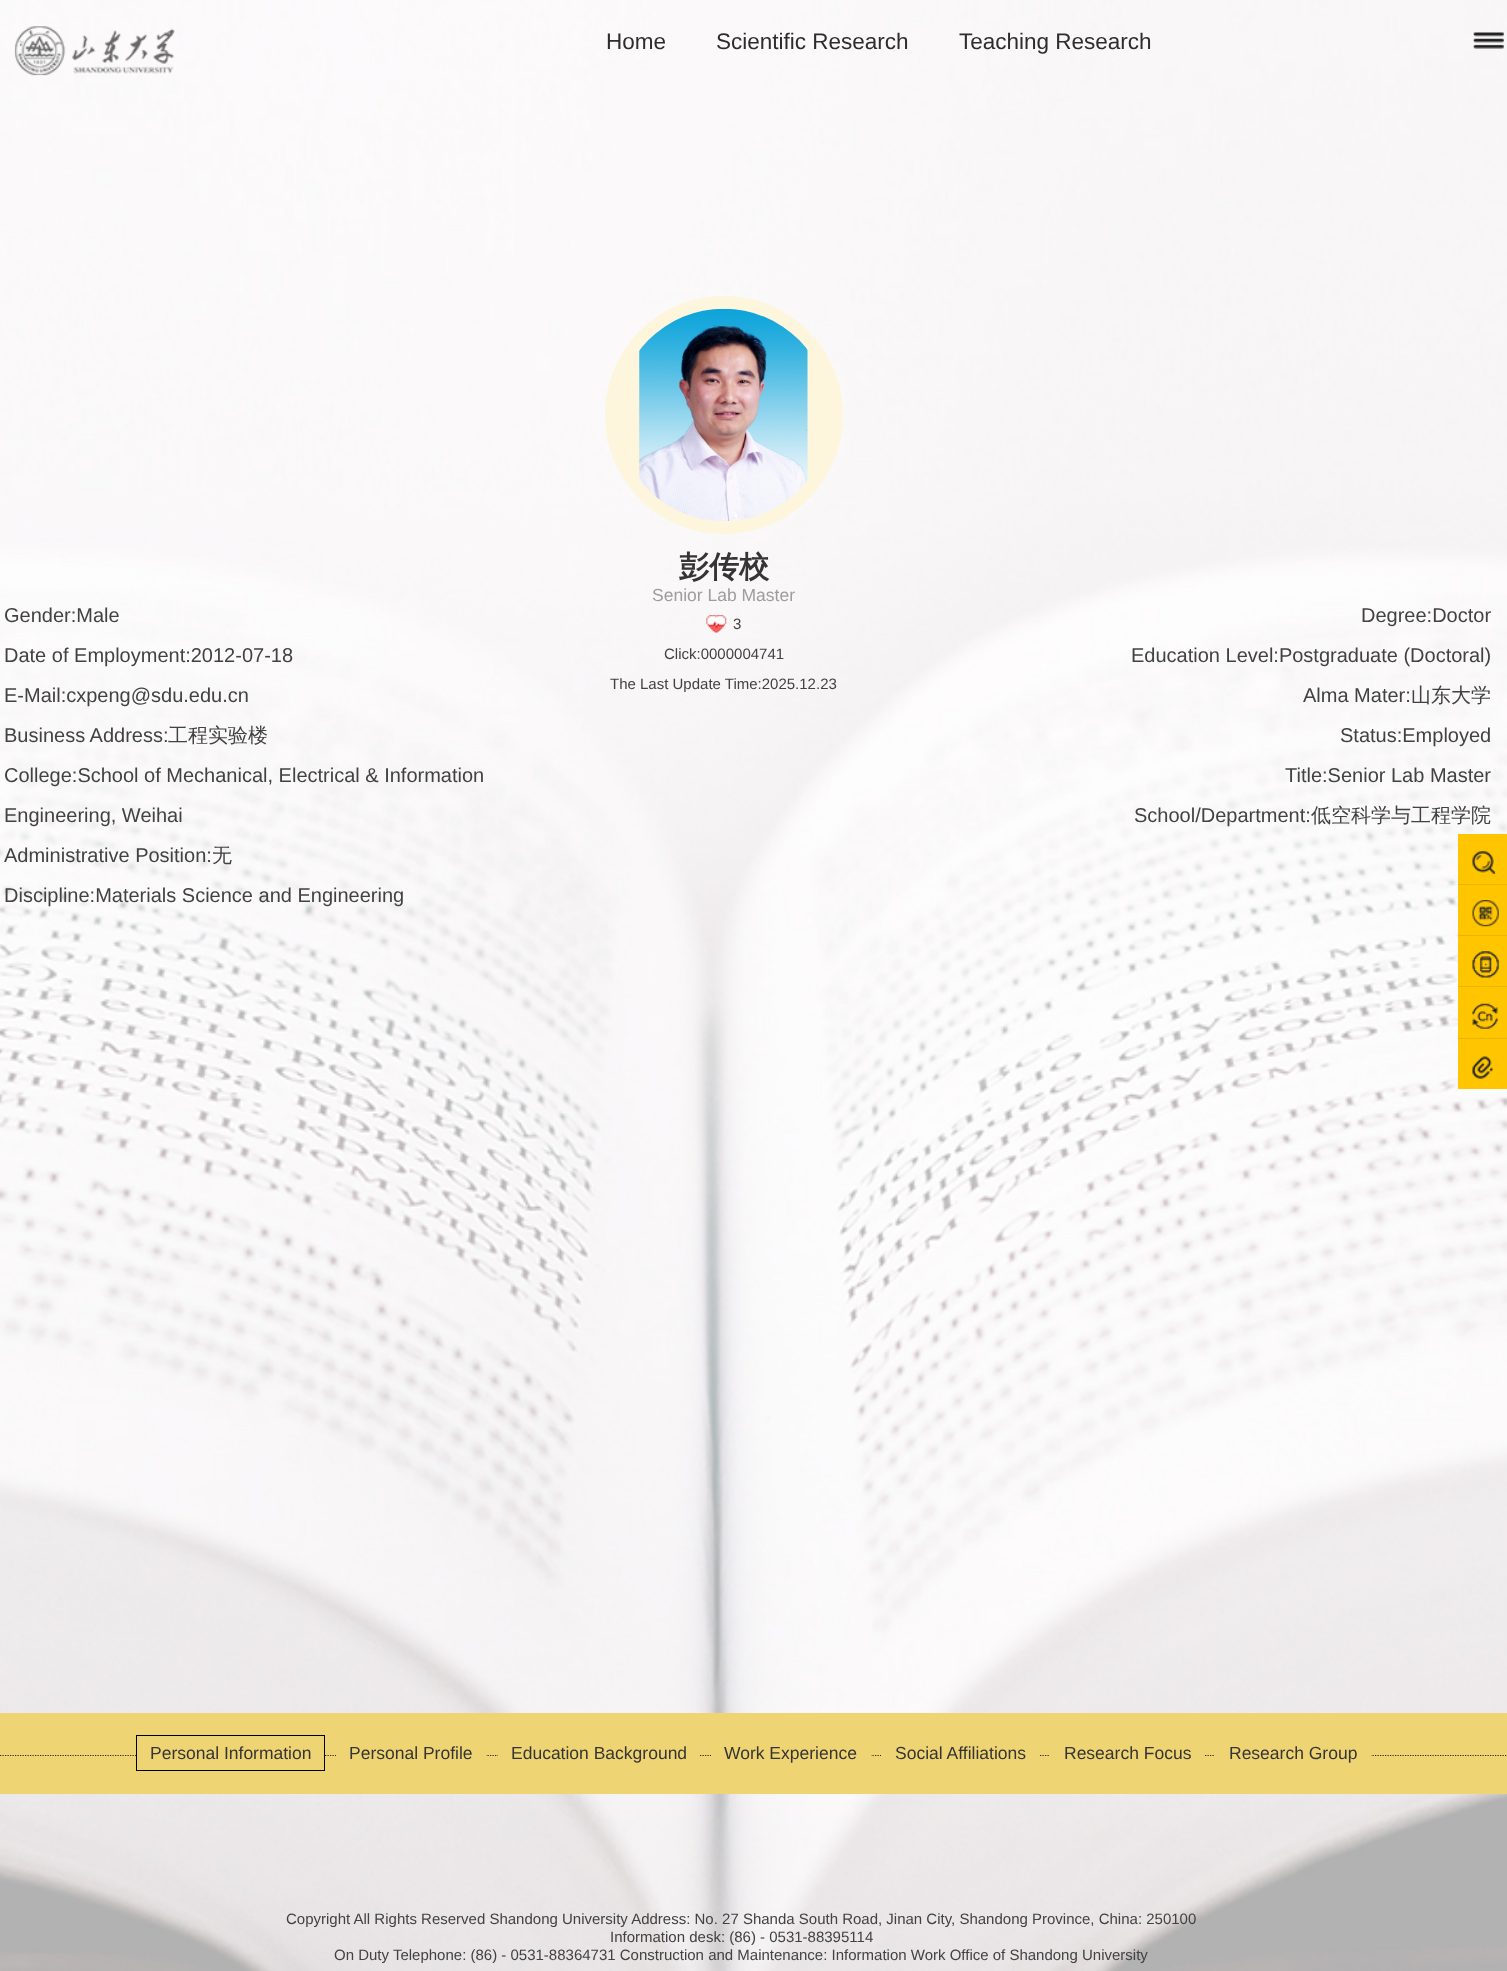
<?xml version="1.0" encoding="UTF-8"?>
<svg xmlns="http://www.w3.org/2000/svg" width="1507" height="1971">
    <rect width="100%" height="100%" fill="#FFFFFF"/>
    <image x="0" y="0" width="1507" height="1971" href="img_01.png"/>
    <image x="14" y="26" width="161" height="50" href="img_02.png"/>
    <text x="606" y="49" font-family="Liberation Sans" font-size="22.5" fill="#2D2D2D">Home</text>
    <text x="716" y="49" font-family="Liberation Sans" font-size="22.5" fill="#2D2D2D">Scientific Research</text>
    <text x="959" y="49" font-family="Liberation Sans" font-size="22.5" fill="#2D2D2D">Teaching Research</text>
    <image x="1473" y="32" width="31" height="17" href="img_03.png"/>
    <text x="4" y="622" font-family="Liberation Sans" font-size="20" fill="#424242">Gender:Male</text>
    <text x="4" y="662" font-family="Liberation Sans" font-size="20" fill="#424242">Date of Employment:2012-07-18</text>
    <text x="4" y="702" font-family="Liberation Sans" font-size="20" fill="#424242">E-Mail:cxpeng@sdu.edu.cn</text>
    <text x="4" y="742" font-family="Liberation Sans" font-size="20" fill="#424242">Business Address:</text>
    <text x="168" y="742" font-family="WenQuanYi Zen Hei" font-size="20" font-weight="500" fill="#424242">工程实验楼</text>
    <text x="4" y="782" font-family="Liberation Sans" font-size="20" fill="#424242">College:School of Mechanical, Electrical &amp; Information</text>
    <text x="4" y="822" font-family="Liberation Sans" font-size="20" fill="#424242">Engineering, Weihai</text>
    <text x="4" y="862" font-family="Liberation Sans" font-size="20" fill="#424242">Administrative Position:</text>
    <text x="212" y="862" font-family="WenQuanYi Zen Hei" font-size="20" font-weight="500" fill="#424242">无</text>
    <text x="4" y="902" font-family="Liberation Sans" font-size="20" fill="#424242">Discipline:Materials Science and Engineering</text>
    <circle cx="724" cy="415" r="112.5" fill="#FDF5DC" stroke="#FDF5DC" stroke-width="13"/>
    <image x="639" y="308" width="169" height="213" href="img_04.png"/>
    <text x="679" y="577" font-family="WenQuanYi Zen Hei" font-size="30" font-weight="700" fill="#353535">彭传校</text>
    <text x="652" y="601" font-family="Liberation Sans" font-size="17.5" fill="#9D9D9D">Senior Lab Master</text>
    <image x="706" y="615" width="21" height="18" href="img_05.png"/>
    <text x="733" y="629" font-family="Liberation Sans" font-size="15" fill="#424242">3</text>
    <text x="664" y="659" font-family="Liberation Sans" font-size="15" fill="#424242">Click:0000004741</text>
    <text x="610" y="689" font-family="Liberation Sans" font-size="15" fill="#424242">The Last Update Time:2025.12.23</text>
    <text x="1361" y="622" font-family="Liberation Sans" font-size="20" fill="#424242">Degree:Doctor</text>
    <text x="1131" y="662" font-family="Liberation Sans" font-size="20" fill="#424242">Education Level:Postgraduate (Doctoral)</text>
    <text x="1303" y="702" font-family="Liberation Sans" font-size="20" fill="#424242">Alma Mater:</text>
    <text x="1411" y="702" font-family="WenQuanYi Zen Hei" font-size="20" font-weight="500" fill="#424242">山东大学</text>
    <text x="1340" y="742" font-family="Liberation Sans" font-size="20" fill="#424242">Status:Employed</text>
    <text x="1285" y="782" font-family="Liberation Sans" font-size="20" fill="#424242">Title:Senior Lab Master</text>
    <text x="1134" y="822" font-family="Liberation Sans" font-size="20" fill="#424242">School/Department:</text>
    <text x="1311" y="822" font-family="WenQuanYi Zen Hei" font-size="20" font-weight="500" fill="#424242">低空科学与工程学院</text>
    <rect x="0" y="1713" width="1507" height="81" fill="#EFD473"/>
    <path d="M 0 1755.5 H 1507.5" fill="none" stroke="#2F2A17" stroke-width="1.2" stroke-dasharray="1.25 1.25"/>
    <rect x="137" y="1754" width="187" height="3" fill="#EFD473"/>
    <rect x="136.5" y="1735.5" width="188" height="35" fill="none" stroke="#000000"/>
    <text x="150" y="1759" font-family="Liberation Sans" font-size="17.5" fill="#353535">Personal Information</text>
    <rect x="336" y="1754" width="150" height="3" fill="#EFD473"/>
    <text x="349" y="1759" font-family="Liberation Sans" font-size="17.5" fill="#353535">Personal Profile</text>
    <rect x="498" y="1754" width="201" height="3" fill="#EFD473"/>
    <text x="511" y="1759" font-family="Liberation Sans" font-size="17.5" fill="#353535">Education Background</text>
    <rect x="711" y="1754" width="160" height="3" fill="#EFD473"/>
    <text x="724" y="1759" font-family="Liberation Sans" font-size="17.5" fill="#353535">Work Experience</text>
    <rect x="881" y="1754" width="158" height="3" fill="#EFD473"/>
    <text x="895" y="1759" font-family="Liberation Sans" font-size="17.5" fill="#353535">Social Affiliations</text>
    <rect x="1050" y="1754" width="154" height="3" fill="#EFD473"/>
    <text x="1064" y="1759" font-family="Liberation Sans" font-size="17.5" fill="#353535">Research Focus</text>
    <rect x="1215" y="1754" width="156" height="3" fill="#EFD473"/>
    <text x="1229" y="1759" font-family="Liberation Sans" font-size="17.5" fill="#353535">Research Group</text>
    <text x="286" y="1924" font-family="Liberation Sans" font-size="15" fill="#424242">Copyright All Rights Reserved Shandong University Address: No. 27 Shanda South Road, Jinan City, Shandong Province, China: 250100</text>
    <text x="610" y="1942" font-family="Liberation Sans" font-size="15" fill="#424242">Information desk: (86) - 0531-88395114</text>
    <text x="334" y="1960" font-family="Liberation Sans" font-size="15" fill="#424242">On Duty Telephone: (86) - 0531-88364731 Construction and Maintenance: Information Work Office of Shandong University</text>
    <rect x="1458" y="834" width="49" height="255" fill="#FFC600"/>
    <rect x="1458" y="884" width="49" height="1" fill="#E9B501"/>
    <image x="1472" y="851" width="24" height="23" href="img_06.png"/>
    <rect x="1458" y="935" width="49" height="1" fill="#E9B501"/>
    <image x="1472" y="900" width="27" height="27" href="img_07.png"/>
    <rect x="1458" y="986" width="49" height="1" fill="#E9B501"/>
    <image x="1472" y="951" width="27" height="27" href="img_08.png"/>
    <rect x="1458" y="1038" width="49" height="1" fill="#E9B501"/>
    <image x="1472" y="1003" width="26" height="26" href="img_09.png"/>
    <image x="1472" y="1056" width="21" height="23" href="img_10.png"/>
</svg>
